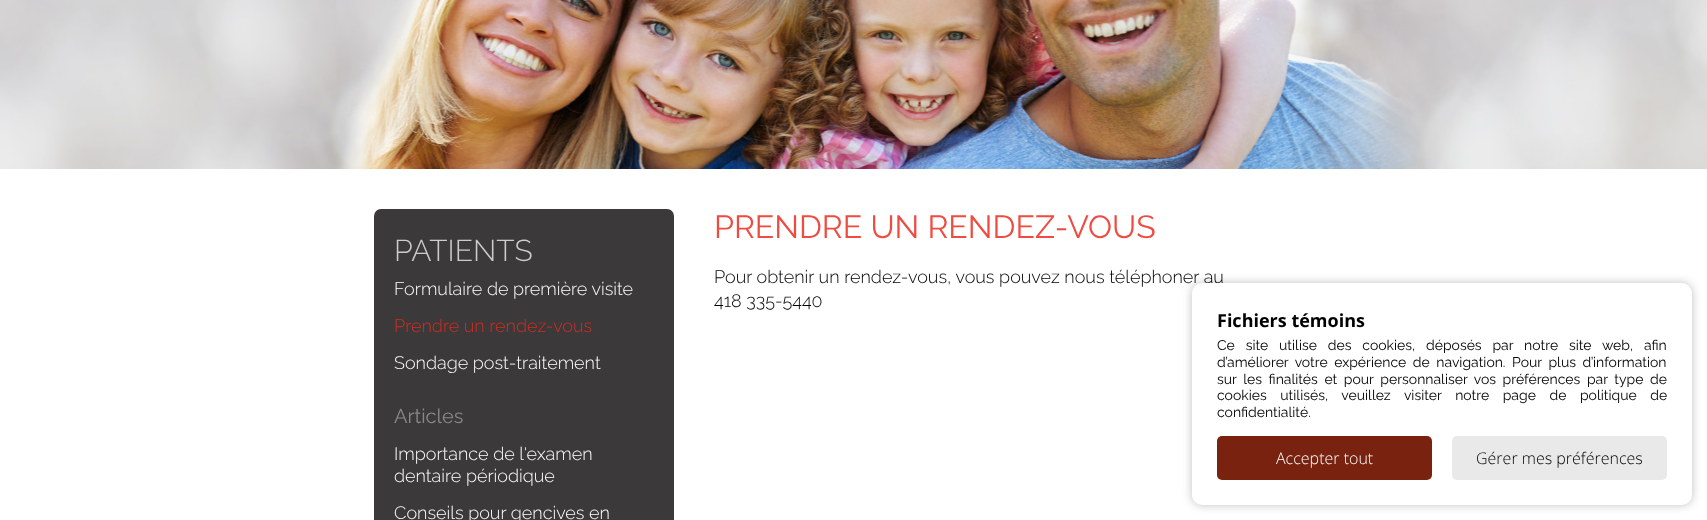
<?xml version="1.0" encoding="UTF-8"?>
<svg xmlns="http://www.w3.org/2000/svg" width="1707" height="520">
    <defs>
        <filter id="blur1" x="-50%" y="-200%" width="200%" height="500%"><feGaussianBlur stdDeviation="5"/></filter>
    </defs>
    <rect width="100%" height="100%" fill="#FFFFFF"/>
    <image x="0" y="0" width="1707" height="169" href="img_01.png"/>
    <rect x="374" y="209" width="300" height="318" rx="7" fill="#3B393A"/>
    <text x="394" y="261" font-family="Raleway" font-size="30" font-weight="300" fill="#CCCCCC">PATIENTS</text>
    <text x="394" y="295" font-family="Raleway" font-size="18" font-weight="300" fill="#FFFFFF">Formulaire de première visite</text>
    <text x="394" y="332" font-family="Raleway" font-size="18" font-weight="300" fill="#D62B21">Prendre un rendez-vous</text>
    <text x="394" y="369" font-family="Raleway" font-size="18" font-weight="300" fill="#FFFFFF">Sondage post-traitement</text>
    <text x="394" y="423" font-family="Raleway" font-size="20" fill="#888888">Articles</text>
    <text font-family="Raleway" font-size="18" font-weight="300" fill="#FFFFFF">
        <tspan x="394" y="460">Importance de l'examen</tspan>
        <tspan x="394" y="482">dentaire périodique</tspan>
    </text>
    <text x="394" y="519" font-family="Raleway" font-size="18" font-weight="300" fill="#FFFFFF">Conseils pour gencives en</text>
    <text x="714" y="238" font-family="Raleway" font-size="32" fill="#EF4B41">PRENDRE UN RENDEZ-VOUS</text>
    <text font-family="Raleway" font-size="18" font-weight="300" fill="#000000">
        <tspan x="714" y="283">Pour obtenir un rendez-vous, vous pouvez nous téléphoner au</tspan>
        <tspan x="714" y="307">418 335-5440</tspan>
    </text>
    <rect x="1192" y="283" width="500" height="222" rx="10" fill="#000000" fill-opacity="0.25" filter="url(#blur1)"/>
    <rect x="1192" y="283" width="500" height="222" rx="10" fill="#FFFFFF"/>
    <text x="1217" y="327" font-family="Open Sans" font-size="18" font-weight="700" fill="#000000">Fichiers témoins</text>
    <text font-family="Raleway" font-size="14" fill="#000000">
        <tspan x="1217" y="350" word-spacing="7.25">Ce site utilise des cookies, déposés par notre site web, afin</tspan>
        <tspan x="1217" y="367" word-spacing="3">d’améliorer votre expérience de navigation. Pour plus d’information</tspan>
        <tspan x="1217" y="384" word-spacing="3">sur les finalités et pour personnaliser vos préférences par type de</tspan>
        <tspan x="1217" y="400" word-spacing="10">cookies utilisés, veuillez visiter notre page de politique de</tspan>
        <tspan x="1217" y="417">confidentialité.</tspan>
    </text>
    <rect x="1217" y="436" width="215" height="44" rx="5" fill="#78220F"/>
    <text x="1276" y="464" font-family="Open Sans" font-size="16" font-weight="300" fill="#FFFFFF">Accepter tout</text>
    <rect x="1452" y="436" width="215" height="44" rx="5" fill="#E9E9E9"/>
    <text x="1476" y="464" font-family="Open Sans" font-size="16" font-weight="300" fill="#000000">Gérer mes préférences</text>
</svg>
